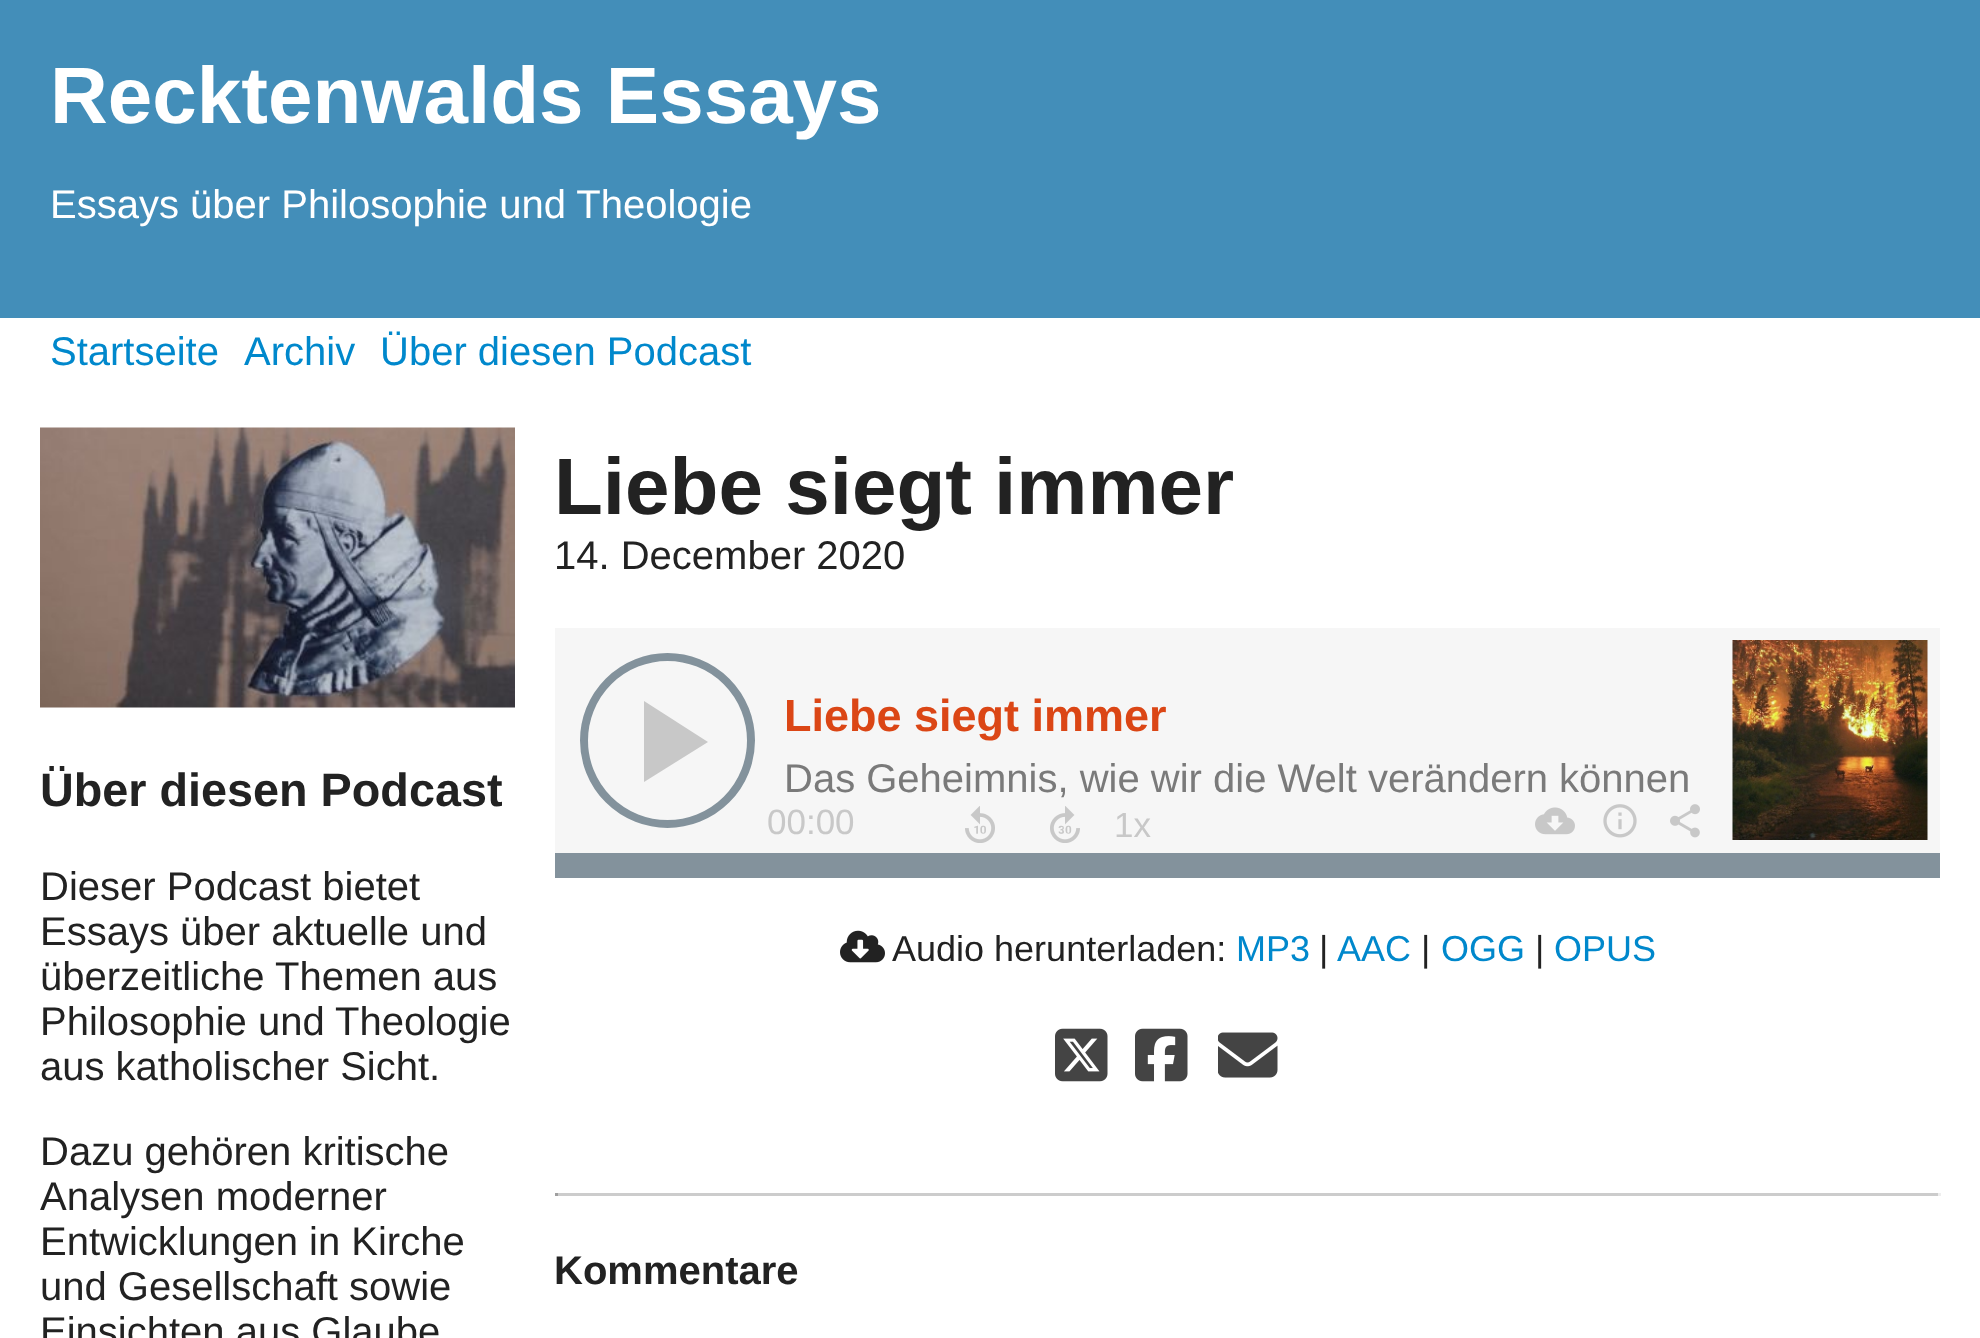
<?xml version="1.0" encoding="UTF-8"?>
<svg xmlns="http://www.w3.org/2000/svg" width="1980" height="1338">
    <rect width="100%" height="100%" fill="#FFFFFF"/>
    <rect x="0" y="0" width="1980" height="318" fill="#438EB9"/>
    <text x="50" y="123" font-family="Liberation Sans" font-size="80" font-weight="700" fill="#FFFFFF">Recktenwalds Essays</text>
    <text x="50" y="218" font-family="Liberation Sans" font-size="40" fill="#FFFFFF">Essays über Philosophie und Theologie</text>
    <text x="50" y="365" font-family="Liberation Sans" font-size="40" fill="#0088CC">Startseite</text>
    <text x="244" y="365" font-family="Liberation Sans" font-size="40" fill="#0088CC">Archiv</text>
    <text x="380" y="365" font-family="Liberation Sans" font-size="40" fill="#0088CC">Über diesen Podcast</text>
    <image x="40" y="427" width="475" height="281" href="img_01.png"/>
    <text x="40" y="806" font-family="Liberation Sans" font-size="46.75" font-weight="700" fill="#222222">Über diesen Podcast</text>
    <text font-family="Liberation Sans" font-size="40" fill="#222222">
        <tspan x="40" y="900">Dieser Podcast bietet</tspan>
        <tspan x="40" y="945">Essays über aktuelle und</tspan>
        <tspan x="40" y="990">überzeitliche Themen aus</tspan>
        <tspan x="40" y="1035">Philosophie und Theologie</tspan>
        <tspan x="40" y="1080">aus katholischer Sicht.</tspan>
    </text>
    <text font-family="Liberation Sans" font-size="40" fill="#222222">
        <tspan x="40" y="1165">Dazu gehören kritische</tspan>
        <tspan x="40" y="1210">Analysen moderner</tspan>
        <tspan x="40" y="1255">Entwicklungen in Kirche</tspan>
        <tspan x="40" y="1300">und Gesellschaft sowie</tspan>
        <tspan x="40" y="1345">Einsichten aus Glaube</tspan>
    </text>
    <text x="554" y="514" font-family="Liberation Sans" font-size="80" font-weight="700" fill="#222222">Liebe siegt immer</text>
    <text x="554" y="569" font-family="Liberation Sans" font-size="40" fill="#222222">14. December 2020</text>
    <rect x="555" y="628" width="1385" height="225" fill="#F6F6F6"/>
    <circle cx="667.5" cy="740.5" r="83.5" fill="none" stroke="#83929C" stroke-width="8"/>
    <path d="M 644 701 L 708 742 L 644 782 Z" fill="#C8C8C8"/>
    <text x="784" y="731" font-family="Liberation Sans" font-size="45" font-weight="700" fill="#DB4615">Liebe siegt immer</text>
    <text x="784" y="792" font-family="Liberation Sans" font-size="40" fill="#7A7A7A">Das Geheimnis, wie wir die Welt verändern können</text>
    <image x="1732" y="640" width="196" height="200" href="img_02.png"/>
    <text x="767" y="834" font-family="Liberation Sans" font-size="35" fill="#C8C8C8">00:00</text>
    <rect x="555" y="853" width="1385" height="25" fill="#83929C"/>
    <image x="965" y="806" width="30" height="37" href="img_03.png"/>
    <image x="1050" y="806" width="30" height="37" href="img_04.png"/>
    <text x="1114" y="837" font-family="Liberation Sans" font-size="35" fill="#C8C8C8">1x</text>
    <image x="1535" y="807" width="40" height="28" href="img_05.png"/>
    <image x="1603" y="804" width="34" height="34" href="img_06.png"/>
    <image x="1670" y="804" width="30" height="34" href="img_07.png"/>
    <image x="840" y="930" width="45" height="33" href="img_08.png"/>
    <text x="892" y="961" font-family="Liberation Sans" font-size="36" fill="#222222">Audio herunterladen:</text>
    <text x="1236" y="961" font-family="Liberation Sans" font-size="36" fill="#0088CC">MP3</text>
    <text x="1319" y="961" font-family="Liberation Sans" font-size="36" fill="#222222">|</text>
    <text x="1337" y="961" font-family="Liberation Sans" font-size="36" fill="#0088CC">AAC</text>
    <text x="1421" y="961" font-family="Liberation Sans" font-size="36" fill="#222222">|</text>
    <text x="1441" y="961" font-family="Liberation Sans" font-size="36" fill="#0088CC">OGG</text>
    <text x="1535" y="961" font-family="Liberation Sans" font-size="36" fill="#222222">|</text>
    <text x="1554" y="961" font-family="Liberation Sans" font-size="36" fill="#0088CC">OPUS</text>
    <image x="1055" y="1028" width="53" height="54" href="img_09.png"/>
    <image x="1135" y="1028" width="53" height="54" href="img_10.png"/>
    <image x="1218" y="1032" width="60" height="46" href="img_11.png"/>
    <rect x="555" y="1193" width="1385" height="3" fill="#CCCCCC"/>
    <rect x="1938" y="1193" width="3" height="3" fill="#EEEEEE"/>
    <rect x="555" y="1193" width="3" height="3" fill="#9F9F9F"/>
    <text x="554" y="1284" font-family="Liberation Sans" font-size="40" font-weight="700" fill="#222222">Kommentare</text>
</svg>
